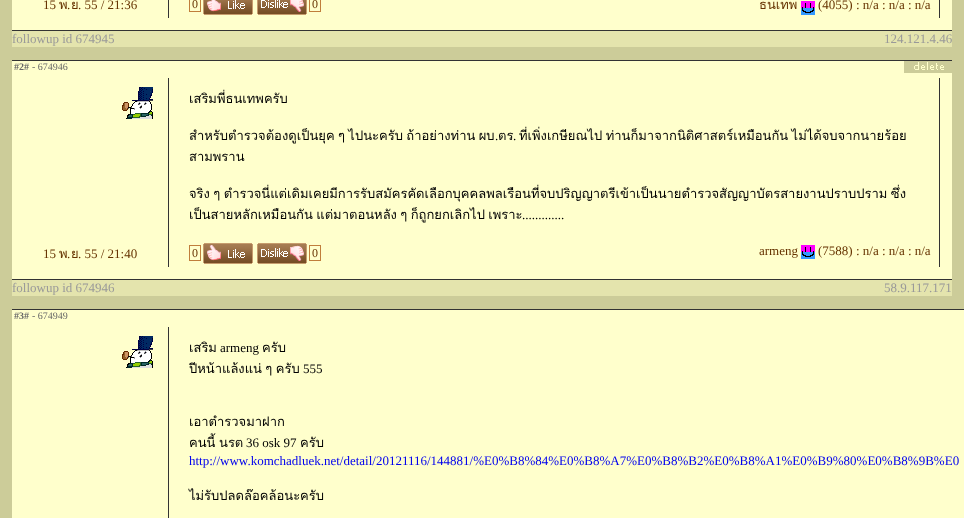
<?xml version="1.0" encoding="UTF-8"?>
<svg xmlns="http://www.w3.org/2000/svg" width="964" height="518">
    <rect width="100%" height="100%" fill="#CCCC99"/>
    <rect x="12" y="0" width="940" height="30" fill="#FFFFCC"/>
    <text x="43" y="9" font-family="Liberation Serif" font-size="13" fill="#663300">15</text>
    <text x="59" y="9" font-family="Loma" font-size="13" fill="#663300">พ</text>
    <text x="67" y="9" font-family="Liberation Serif" font-size="13" fill="#663300">.</text>
    <text x="71" y="9" font-family="Loma" font-size="13" fill="#663300">ย</text>
    <text x="78" y="9" font-family="Liberation Serif" font-size="13" fill="#663300">. 55 / 21:36</text>
    <rect x="168" y="0" width="1" height="18" fill="#333333"/>
    <rect x="189.5" y="-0.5" width="11" height="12" fill="none" stroke="#C07E3B"/>
    <text x="192" y="8" font-family="Liberation Serif" font-size="12" fill="#663300">0</text>
    <image x="203" y="0" width="50" height="15" href="img_01.png"/>
    <image x="257" y="0" width="50" height="15" href="img_02.png"/>
    <rect x="309.5" y="-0.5" width="11" height="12" fill="none" stroke="#C07E3B"/>
    <text x="312" y="8" font-family="Liberation Serif" font-size="12" fill="#663300">0</text>
    <text x="759" y="9" font-family="Loma" font-size="13" fill="#663300">ธนเทพ</text>
    <image x="801" y="1" width="14" height="14" href="img_03.png"/>
    <text x="818" y="9" font-family="Liberation Serif" font-size="13" fill="#663300">(4055) : n/a : n/a : n/a</text>
    <rect x="939" y="0" width="1" height="18" fill="#333333"/>
    <rect x="12" y="30" width="940" height="1" fill="#333333"/>
    <rect x="12" y="31" width="940" height="16" fill="#E4E4AD"/>
    <text x="12" y="43" font-family="Liberation Serif" font-size="13" fill="#999999">followup id 674945</text>
    <text x="884" y="43" font-family="Liberation Serif" font-size="13" fill="#999999">124.121.4.46</text>
    <rect x="12" y="61" width="940" height="218" fill="#FFFFCC"/>
    <rect x="12" y="60" width="940" height="1" fill="#333333"/>
    <text x="14" y="70" font-family="Liberation Serif" font-size="10" font-weight="700" fill="#666666">#2#</text>
    <text x="32" y="70" font-family="Liberation Serif" font-size="10" fill="#666666">- 674946</text>
    <image x="904" y="61" width="48" height="12" href="img_04.png"/>
    <image x="122" y="87" width="31" height="32" href="img_05.png"/>
    <rect x="168" y="78" width="1" height="189" fill="#333333"/>
    <text x="189" y="103" font-family="Loma" font-size="13" fill="#000000">เสริมพี่ธนเทพครับ</text>
    <text x="189" y="140" word-spacing="-1" font-family="Loma" font-size="13" fill="#000000">สำหรับตำรวจต้องดูเป็นยุค ๆ ไปนะครับ ถ้าอย่างท่าน ผบ</text>
    <text x="495" y="140" font-family="Liberation Serif" font-size="13" fill="#000000">.</text>
    <text x="498" y="140" font-family="Loma" font-size="13" fill="#000000">ตร</text>
    <text x="513" y="140" font-family="Liberation Serif" font-size="13" fill="#000000">.</text>
    <text x="519" y="140" word-spacing="-1" font-family="Loma" font-size="13" fill="#000000">ที่เพิ่งเกษียณไป ท่านก็มาจากนิติศาสตร์เหมือนกัน ไม่ได้จบจากนายร้อย</text>
    <text x="189" y="161" font-family="Loma" font-size="13" fill="#000000">สามพราน</text>
    <text font-family="Loma" font-size="13" fill="#000000">
        <tspan x="189" y="198" word-spacing="-1">จริง ๆ ตำรวจนี่แต่เดิมเคยมีการรับสมัครคัดเลือกบุคคลพลเรือนที่จบปริญญาตรีเข้าเป็นนายตำรวจสัญญาบัตรสายงานปราบปราม ซึ่ง</tspan>
        <tspan x="189" y="219" word-spacing="-1">เป็นสายหลักเหมือนกัน แต่มาตอนหลัง ๆ ก็ถูกยกเลิกไป เพราะ</tspan>
    </text>
    <text x="522" y="219" font-family="Liberation Serif" font-size="13" fill="#000000">.............</text>
    <rect x="939" y="78" width="1" height="189" fill="#333333"/>
    <text x="43" y="258" font-family="Liberation Serif" font-size="13" fill="#663300">15</text>
    <text x="59" y="258" font-family="Loma" font-size="13" fill="#663300">พ</text>
    <text x="67" y="258" font-family="Liberation Serif" font-size="13" fill="#663300">.</text>
    <text x="71" y="258" font-family="Loma" font-size="13" fill="#663300">ย</text>
    <text x="78" y="258" font-family="Liberation Serif" font-size="13" fill="#663300">. 55 / 21:40</text>
    <rect x="189.5" y="245.5" width="11" height="15" fill="none" stroke="#C07E3B"/>
    <text x="192" y="257" font-family="Liberation Serif" font-size="12" fill="#663300">0</text>
    <image x="203" y="243" width="50" height="21" href="img_06.png"/>
    <image x="257" y="243" width="50" height="21" href="img_07.png"/>
    <rect x="309.5" y="245.5" width="11" height="15" fill="none" stroke="#C07E3B"/>
    <text x="312" y="257" font-family="Liberation Serif" font-size="12" fill="#663300">0</text>
    <text x="759" y="255" font-family="Liberation Serif" font-size="13" fill="#663300">armeng</text>
    <image x="801" y="245" width="14" height="14" href="img_03.png"/>
    <text x="818" y="255" font-family="Liberation Serif" font-size="13" fill="#663300">(7588) : n/a : n/a : n/a</text>
    <rect x="12" y="279" width="940" height="1" fill="#333333"/>
    <rect x="12" y="280" width="940" height="16" fill="#E4E4AD"/>
    <text x="12" y="292" font-family="Liberation Serif" font-size="13" fill="#999999">followup id 674946</text>
    <text x="884" y="292" font-family="Liberation Serif" font-size="13" fill="#999999">58.9.117.171</text>
    <rect x="12" y="310" width="952" height="208" fill="#FFFFCC"/>
    <rect x="12" y="309" width="952" height="1" fill="#333333"/>
    <text x="14" y="319" font-family="Liberation Serif" font-size="10" font-weight="700" fill="#666666">#3#</text>
    <text x="32" y="319" font-family="Liberation Serif" font-size="10" fill="#666666">- 674949</text>
    <image x="122" y="336" width="31" height="32" href="img_05.png"/>
    <rect x="168" y="327" width="1" height="191" fill="#333333"/>
    <text x="189" y="352" font-family="Loma" font-size="13" fill="#000000">เสริม</text>
    <text x="220" y="352" font-family="Liberation Serif" font-size="13" fill="#000000">armeng</text>
    <text x="262" y="352" font-family="Loma" font-size="13" fill="#000000">ครับ</text>
    <text x="189" y="373" word-spacing="-1" font-family="Loma" font-size="13" fill="#000000">ปีหน้าแล้งแน่ ๆ ครับ</text>
    <text x="303" y="373" font-family="Liberation Serif" font-size="13" fill="#000000">555</text>
    <text font-family="Loma" font-size="13" fill="#000000">
        <tspan x="189" y="426">เอาตำรวจมาฝาก</tspan>
        <tspan x="189" y="447">คนนี้</tspan>
    </text>
    <text x="219" y="447" font-family="Loma" font-size="13" fill="#000000">นรต</text>
    <text x="246" y="447" font-family="Liberation Serif" font-size="13" fill="#000000">36 osk 97</text>
    <text x="300" y="447" font-family="Loma" font-size="13" fill="#000000">ครับ</text>
    <text x="189" y="465" font-family="Liberation Serif" font-size="13" fill="#0000EE">http://www.komchadluek.net/detail/20121116/144881/%E0%B8%84%E0%B8%A7%E0%B8%B2%E0%B8%A1%E0%B9%80%E0%B8%9B%E0</text>
    <text x="189" y="500" font-family="Loma" font-size="13" fill="#000000">ไม่รับปลดล๊อคล้อนะครับ</text>
</svg>
